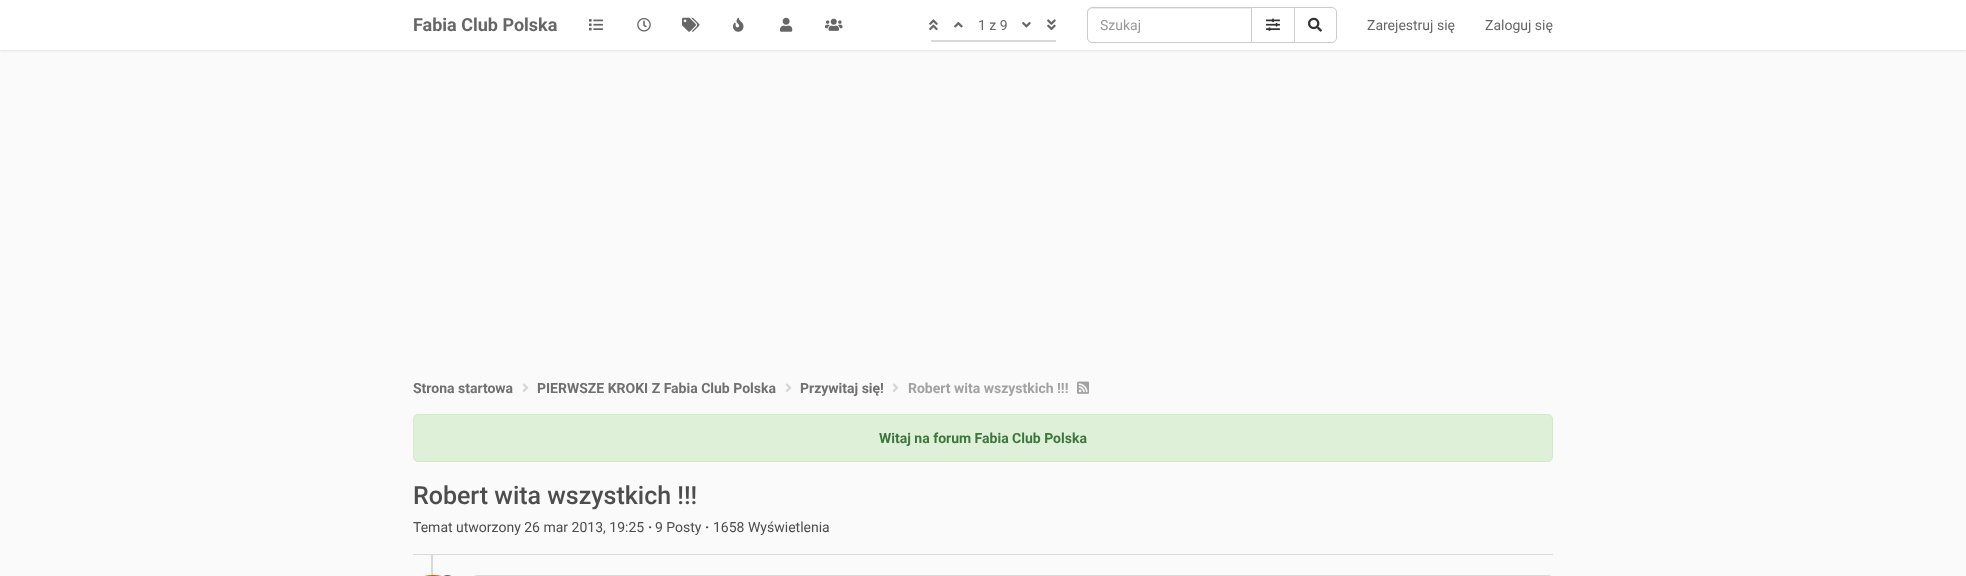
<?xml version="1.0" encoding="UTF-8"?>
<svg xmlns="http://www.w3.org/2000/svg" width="1966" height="576">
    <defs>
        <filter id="blur1" x="-50%" y="-200%" width="200%" height="500%"><feGaussianBlur stdDeviation="1"/></filter>
    </defs>
    <rect width="100%" height="100%" fill="#FAFAFA"/>
    <rect x="0" y="1" width="1966" height="50" fill="#000000" fill-opacity="0.1" filter="url(#blur1)"/>
    <rect x="0" y="0" width="1966" height="50" fill="#FFFFFF"/>
    <text x="413" y="31" font-family="Roboto" font-size="18" font-weight="700" fill="#666666">Fabia Club Polska</text>
    <image x="589" y="19" width="14" height="12" href="img_01.png"/>
    <image x="637" y="18" width="14" height="14" href="img_02.png"/>
    <image x="682" y="17" width="18" height="15" href="img_03.png"/>
    <image x="733" y="17" width="11" height="15" href="img_04.png"/>
    <image x="780" y="17" width="13" height="15" href="img_05.png"/>
    <image x="825" y="18" width="18" height="13" href="img_06.png"/>
    <image x="929" y="19" width="9" height="12" href="img_07.png"/>
    <image x="954" y="22" width="9" height="6" href="img_08.png"/>
    <text x="978" y="30" font-family="Roboto" font-size="14" fill="#666666">1 z 9</text>
    <image x="1022" y="22" width="9" height="6" href="img_09.png"/>
    <image x="1047" y="19" width="9" height="12" href="img_10.png"/>
    <rect x="931" y="40" width="125" height="2" fill="#D9D9D9"/>
    <rect x="1251.5" y="7.5" width="43" height="35" fill="none" stroke="#CCCCCC"/>
    <path d="M 1092 7 H 1252 V 43 H 1092 C 1089 43 1087 41 1087 38 V 12 C 1087 9 1089 7 1092 7 Z" fill="#FFFFFF"/>
    <path d="M 1092 9 H 1251 V 8 H 1092 C 1089 8 1088 10 1088 13 C 1088 11 1090 9 1092 9 Z" fill="#ECECEC"/>
    <path d="M 1092 7.5 H 1251.5 V 42.5 H 1092 C 1089.5 42.5 1087.5 40.5 1087.5 38 V 12 C 1087.5 9.5 1089.5 7.5 1092 7.5 Z" fill="none" stroke="#CCCCCC"/>
    <text x="1100" y="30" font-family="Roboto" font-size="14" fill="#999999">Szukaj</text>
    <image x="1266" y="18" width="14" height="13" href="img_11.png"/>
    <path d="M 1294.5 7.5 H 1332 C 1334.5 7.5 1336.5 9.5 1336.5 12 V 38 C 1336.5 40.5 1334.5 42.5 1332 42.5 H 1294.5 Z" fill="#FFFFFF" stroke="#CCCCCC"/>
    <image x="1308" y="17" width="14" height="15" href="img_12.png"/>
    <text x="1367" y="30" font-family="Roboto" font-size="14" fill="#666666">Zarejestruj się</text>
    <text x="1485" y="30" font-family="Roboto" font-size="14" fill="#666666">Zaloguj się</text>
    <text x="413" y="393" font-family="Roboto" font-size="14" font-weight="700" fill="#707070">Strona startowa</text>
    <image x="522" y="383" width="7" height="9" href="img_13.png"/>
    <text x="537" y="393" font-family="Roboto" font-size="14" font-weight="700" fill="#707070">PIERWSZE KROKI Z Fabia Club Polska</text>
    <image x="785" y="383" width="7" height="9" href="img_13.png"/>
    <text x="800" y="393" font-family="Roboto" font-size="14" font-weight="700" fill="#707070">Przywitaj się!</text>
    <image x="892" y="383" width="7" height="9" href="img_13.png"/>
    <text x="908" y="393" font-family="Roboto" font-size="14" font-weight="700" fill="#A2A2A2">Robert wita wszystkich !!!</text>
    <image x="1077" y="381" width="12" height="13" href="img_14.png"/>
    <rect x="413.5" y="414.5" width="1139" height="47" rx="4.5" fill="#DFF0D8" stroke="#D6E9C6"/>
    <text x="879" y="443" font-family="Roboto" font-size="14" font-weight="700" fill="#3C763D">Witaj na forum Fabia Club Polska</text>
    <rect x="413" y="554" width="1140" height="1" fill="#D9D9D9"/>
    <text x="413" y="504" font-family="Roboto" font-size="25" font-weight="500" fill="#4D4D4D">Robert wita wszystkich !!!</text>
    <text x="413" y="532" font-family="Roboto" font-size="14" fill="#4D4D4D">Temat utworzony 26 mar 2013, 19:25</text>
    <text x="648" y="532" font-family="Roboto" font-size="14" font-weight="700" fill="#4D4D4D">·</text>
    <text x="655" y="532" font-family="Roboto" font-size="14" fill="#4D4D4D">9 Posty</text>
    <text x="705" y="532" font-family="Roboto" font-size="14" font-weight="700" fill="#4D4D4D">·</text>
    <text x="713" y="532" font-family="Roboto" font-size="14" fill="#4D4D4D">1658 Wyświetlenia</text>
    <rect x="431" y="555" width="2" height="21" fill="#D9D9D9"/>
    <rect x="413" y="575" width="40" height="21" rx="20" fill="#E65100"/>
    <rect x="442" y="575" width="11" height="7" rx="5.5" fill="#666666"/>
    <rect x="473.5" y="575.5" width="1079" height="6" rx="4.5" fill="none" stroke="#D9D9D9"/>
</svg>
